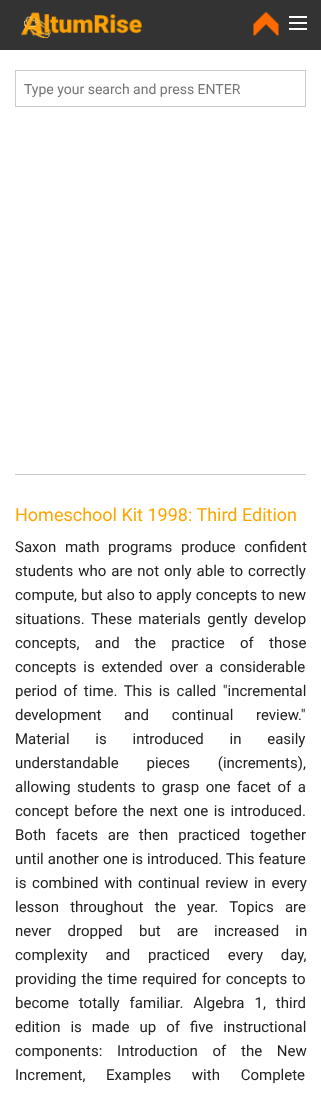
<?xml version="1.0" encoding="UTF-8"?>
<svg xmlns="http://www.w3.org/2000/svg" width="321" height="1094">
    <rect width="100%" height="100%" fill="#FFFFFF"/>
    <rect x="0" y="0" width="321" height="50" fill="#333333"/>
    <image x="20" y="12" width="123" height="27" href="img_01.png"/>
    <image x="253" y="12" width="26" height="24" href="img_02.png"/>
    <rect x="289" y="28" width="18" height="2" fill="#FFFFFF"/>
    <rect x="289" y="22" width="18" height="2" fill="#FFFFFF"/>
    <rect x="289" y="16" width="18" height="2" fill="#FFFFFF"/>
    <rect x="15.5" y="70.5" width="290" height="36" fill="none" stroke="#CCCCCC"/>
    <text x="24" y="94" font-family="Roboto" font-size="14" fill="#757575">Type your search and press ENTER</text>
    <rect x="15" y="474" width="291" height="1" fill="#CCCCCC"/>
    <text x="15" y="521" font-family="Roboto" font-size="18" fill="#FFA500">Homeschool Kit 1998: Third Edition</text>
    <text font-family="Roboto" font-size="15" fill="#222222">
        <tspan x="15" y="552" word-spacing="5">Saxon math programs produce confident</tspan>
        <tspan x="15" y="576" word-spacing="1.25">students who are not only able to correctly</tspan>
        <tspan x="15" y="600" word-spacing="0.25">compute, but also to apply concepts to new</tspan>
        <tspan x="15" y="624" word-spacing="2.75">situations. These materials gently develop</tspan>
        <tspan x="15" y="648" word-spacing="11.5">concepts, and the practice of those</tspan>
        <tspan x="15" y="672" word-spacing="3">concepts is extended over a considerable</tspan>
        <tspan x="15" y="696" word-spacing="2.75">period of time. This is called "incremental</tspan>
        <tspan x="15" y="720" word-spacing="19">development and continual review."</tspan>
        <tspan x="15" y="744" word-spacing="22">Material is introduced in easily</tspan>
        <tspan x="15" y="768" word-spacing="24">understandable pieces (increments),</tspan>
        <tspan x="15" y="792" word-spacing="2.75">allowing students to grasp one facet of a</tspan>
        <tspan x="15" y="816" word-spacing="1.75">concept before the next one is introduced.</tspan>
        <tspan x="15" y="840" word-spacing="6.25">Both facets are then practiced together</tspan>
        <tspan x="15" y="864" word-spacing="0.25">until another one is introduced. This feature</tspan>
        <tspan x="15" y="888" word-spacing="2">is combined with continual review in every</tspan>
        <tspan x="15" y="912" word-spacing="7.5">lesson throughout the year. Topics are</tspan>
        <tspan x="15" y="936" word-spacing="12.5">never dropped but are increased in</tspan>
        <tspan x="15" y="960" word-spacing="14">complexity and practiced every day,</tspan>
        <tspan x="15" y="984" word-spacing="1.25">providing the time required for concepts to</tspan>
        <tspan x="15" y="1008" word-spacing="6.25">become totally familiar. Algebra 1, third</tspan>
        <tspan x="15" y="1032" word-spacing="6.25">edition is made up of five instructional</tspan>
        <tspan x="15" y="1056" word-spacing="11">components: Introduction of the New</tspan>
        <tspan x="15" y="1080" word-spacing="17">Increment, Examples with Complete</tspan>
    </text>
</svg>
